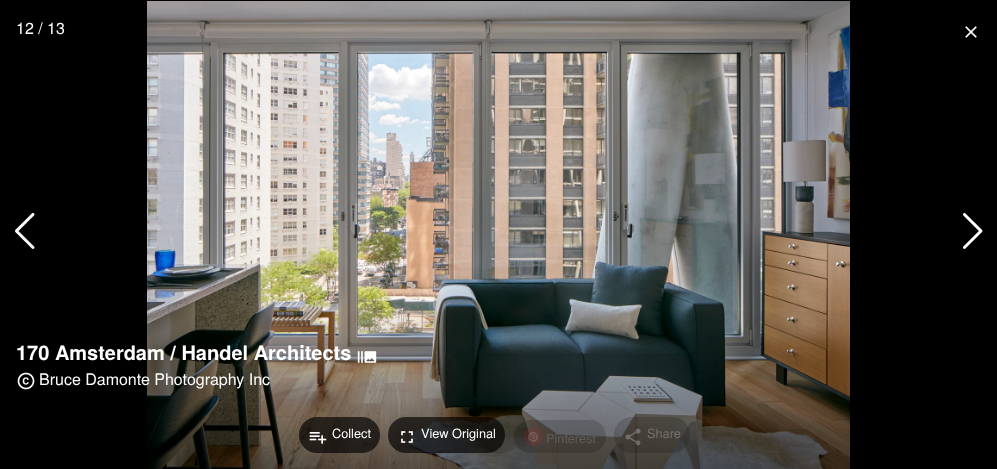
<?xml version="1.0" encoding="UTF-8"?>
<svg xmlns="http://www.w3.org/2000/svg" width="997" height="469">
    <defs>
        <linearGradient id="g1" gradientUnits="userSpaceOnUse" x1="499" y1="469" x2="499" y2="304"><stop offset="0" stop-color="#000000" stop-opacity="0.5"/><stop offset="1" stop-color="#000000" stop-opacity="0"/></linearGradient>
    </defs>
    <rect width="100%" height="100%" fill="#000000"/>
    <text x="16" y="34" font-family="TeX Gyre Heros" font-size="16" fill="#FFFFFF">12 / 13</text>
    <image x="965" y="26" width="12" height="12" href="img_01.png"/>
    <image x="147" y="1" width="703" height="468" href="img_02.png"/>
    <image x="15" y="213" width="20" height="36" href="img_03.png"/>
    <image x="963" y="213" width="20" height="36" href="img_04.png"/>
    <rect x="147" y="311" width="703" height="158" fill="url(#g1)"/>
    <text x="16" y="360" font-family="TeX Gyre Heros" font-size="20" font-weight="700" fill="#FFFFFF">170 Amsterdam / Handel Architects</text>
    <image x="357" y="351" width="20" height="12" href="img_05.png"/>
    <image x="17" y="372" width="18" height="18" href="img_06.png"/>
    <text x="39" y="385" font-family="TeX Gyre Heros" font-size="16" fill="#FFFFFF">Bruce Damonte Photography Inc</text>
    <rect x="299" y="417" width="81" height="36" rx="18" fill="#000000" fill-opacity="0.65"/>
    <image x="309" y="432" width="18" height="12" href="img_07.png"/>
    <text x="332" y="438" font-family="TeX Gyre Heros" font-size="12.75" fill="#FFFFFF">Collect</text>
    <rect x="388" y="417" width="117" height="36" rx="18" fill="#000000" fill-opacity="0.65"/>
    <image x="401" y="431" width="12" height="12" href="img_08.png"/>
    <text x="421" y="438" font-family="TeX Gyre Heros" font-size="12.75" fill="#FFFFFF">View Original</text>
    <rect x="514" y="420" width="92" height="33" rx="16.5" fill="#000000" fill-opacity="0.16"/>
    <image x="523" y="427" width="20" height="20" href="img_09.png"/>
    <text x="546" y="443" font-family="TeX Gyre Heros" font-size="12.75" fill="#605C58">Pinterest</text>
    <rect x="614" y="417" width="76" height="36" rx="18" fill="#000000" fill-opacity="0.16"/>
    <image x="625" y="428" width="16" height="18" href="img_10.png"/>
    <text x="647" y="438" font-family="TeX Gyre Heros" font-size="12.75" fill="#74716D">Share</text>
</svg>
